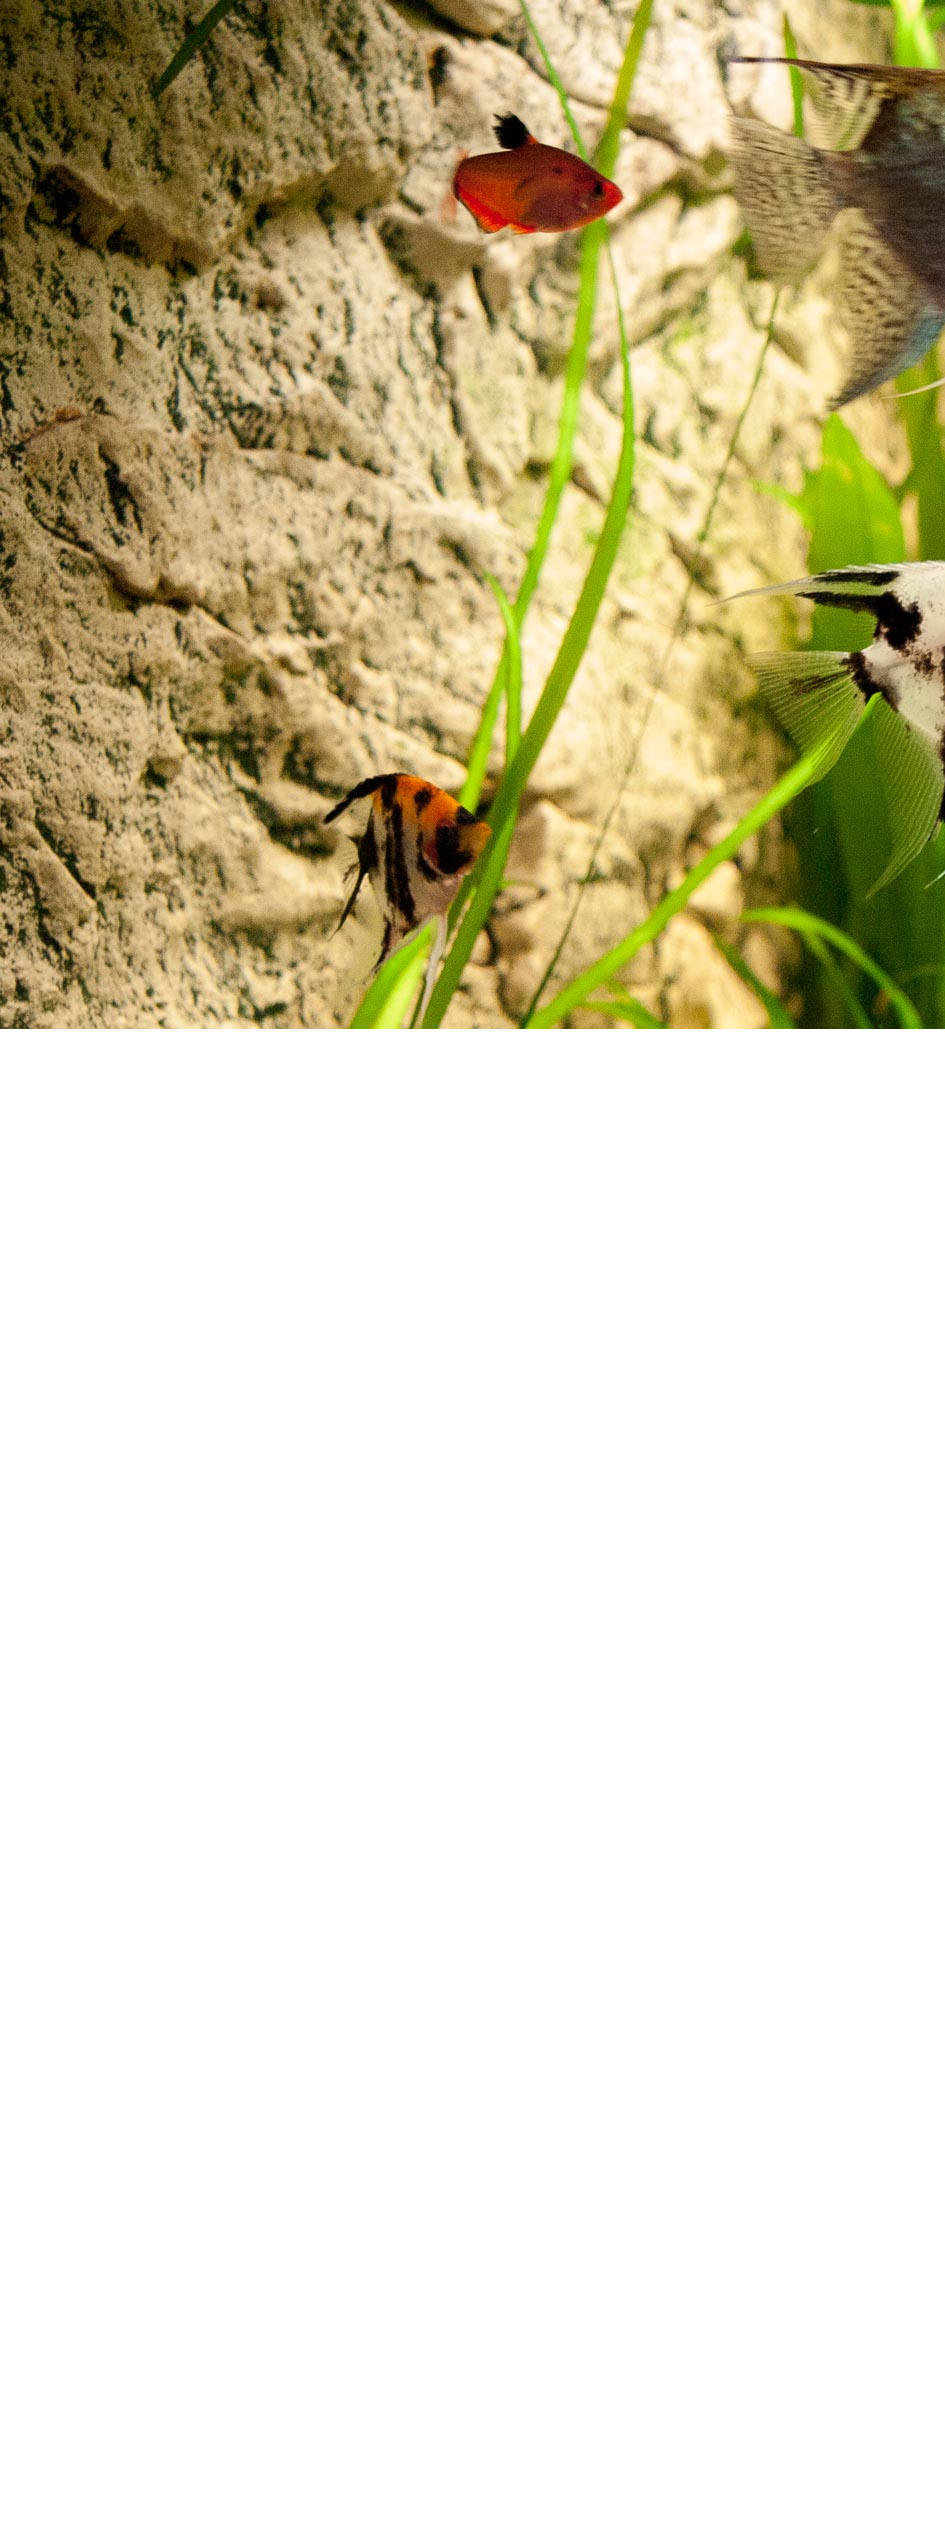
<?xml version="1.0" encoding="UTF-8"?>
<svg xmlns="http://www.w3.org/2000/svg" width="945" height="2527">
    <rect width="100%" height="100%" fill="#FFFFFF"/>
    <image x="0" y="0" width="945" height="1029" href="img_01.png"/>
</svg>
